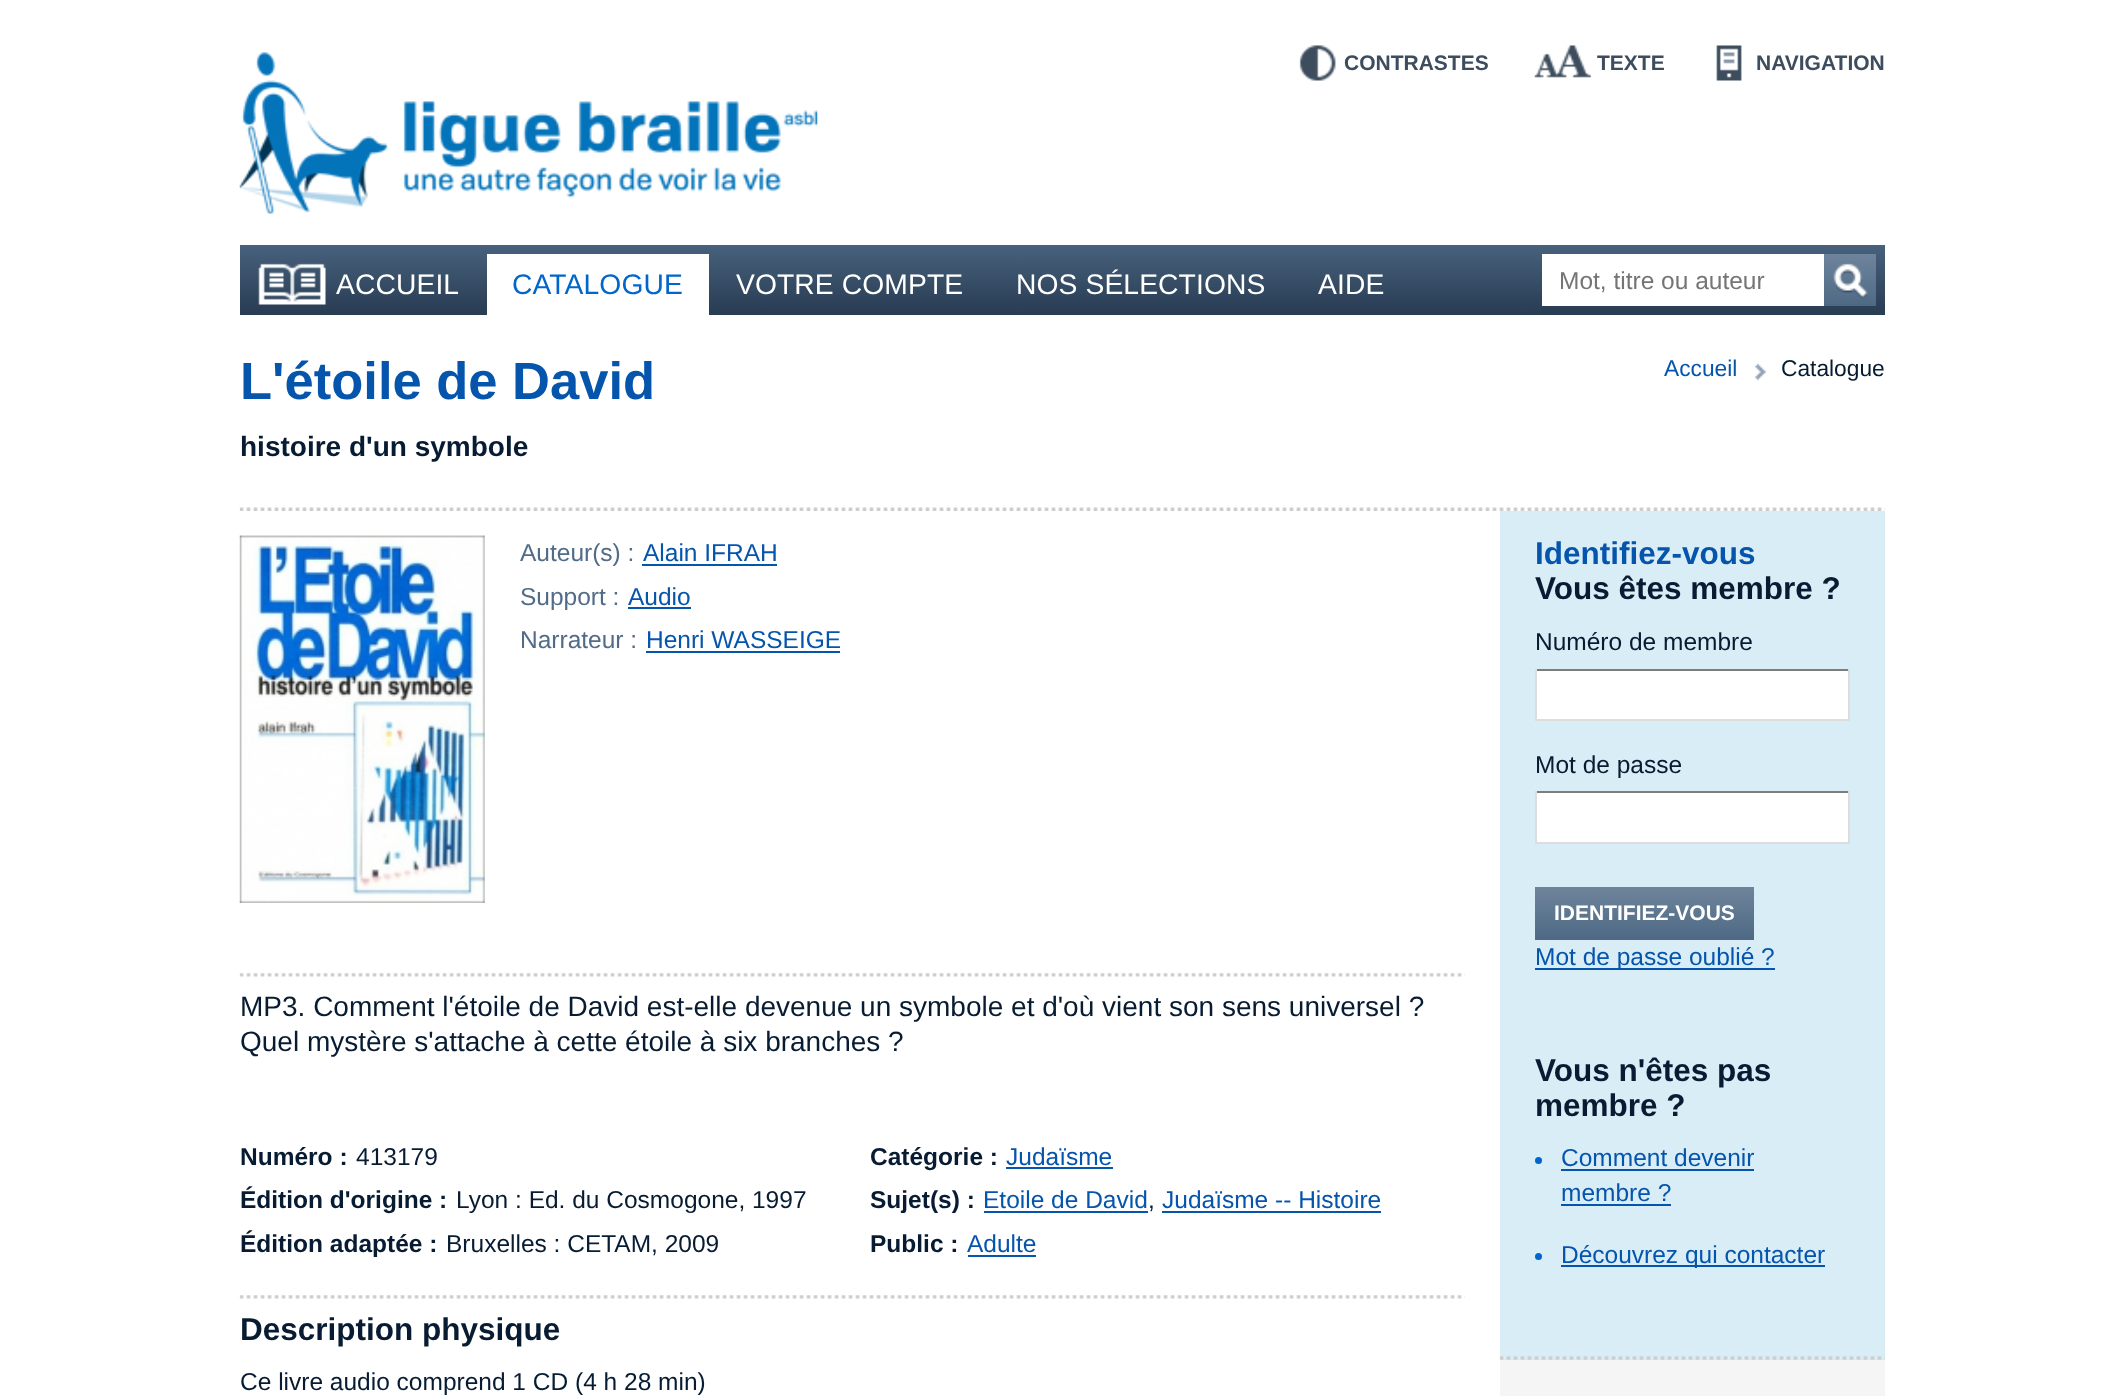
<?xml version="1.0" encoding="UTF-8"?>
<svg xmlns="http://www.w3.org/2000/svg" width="2123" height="1396">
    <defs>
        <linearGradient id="g1" gradientUnits="userSpaceOnUse" x1="1062" y1="245" x2="1062" y2="315"><stop offset="0" stop-color="#48617D"/><stop offset="1" stop-color="#283C52"/></linearGradient>
        <linearGradient id="g2" gradientUnits="userSpaceOnUse" x1="1850" y1="254" x2="1850" y2="306"><stop offset="0" stop-color="#6E849B"/><stop offset="1" stop-color="#4E6985"/></linearGradient>
        <linearGradient id="g3" gradientUnits="userSpaceOnUse" x1="1644" y1="887" x2="1644" y2="940"><stop offset="0" stop-color="#6E849B"/><stop offset="1" stop-color="#4E6985"/></linearGradient>
    </defs>
    <rect width="100%" height="100%" fill="#FFFFFF"/>
    <image x="239" y="52" width="579" height="162" href="img_01.png"/>
    <image x="1299" y="45" width="37" height="36" href="img_02.png"/>
    <text x="1344" y="70" font-family="Liberation Sans" font-size="21" font-weight="700" fill="#3D4D5E">CONTRASTES</text>
    <image x="1534" y="45" width="57" height="33" href="img_03.png"/>
    <text x="1597" y="70" font-family="Liberation Sans" font-size="21" font-weight="700" fill="#3D4D5E">TEXTE</text>
    <image x="1716" y="45" width="26" height="36" href="img_04.png"/>
    <text x="1756" y="70" font-family="Liberation Sans" font-size="21" font-weight="700" fill="#3D4D5E">NAVIGATION</text>
    <rect x="240" y="245" width="1645" height="70" fill="url(#g1)"/>
    <image x="258" y="263" width="68" height="42" href="img_05.png"/>
    <text x="336" y="294" font-family="Liberation Sans" font-size="28.25" letter-spacing="0.1" fill="#FFFFFF">ACCUEIL</text>
    <rect x="487" y="254" width="222" height="61" fill="#FFFFFF"/>
    <text x="512" y="294" font-family="Liberation Sans" font-size="28.25" letter-spacing="0.1" fill="#0066CC">CATALOGUE</text>
    <text x="736" y="294" font-family="Liberation Sans" font-size="28.25" letter-spacing="0.1" fill="#FFFFFF">VOTRE COMPTE</text>
    <text x="1016" y="294" font-family="Liberation Sans" font-size="28.25" letter-spacing="0.1" fill="#FFFFFF">NOS SÉLECTIONS</text>
    <text x="1318" y="294" font-family="Liberation Sans" font-size="28.25" letter-spacing="0.1" fill="#FFFFFF">AIDE</text>
    <rect x="1542" y="254" width="282" height="52" fill="#FFFFFF"/>
    <text x="1559" y="289" font-family="Liberation Sans" font-size="24.5" fill="#757575">Mot, titre ou auteur</text>
    <rect x="1824" y="254" width="52" height="52" fill="url(#g2)"/>
    <image x="1833" y="263" width="35" height="36" href="img_06.png"/>
    <image x="239" y="507" width="1646" height="4" href="img_07.png"/>
    <text x="240" y="399" font-family="Liberation Sans" font-size="52.5" font-weight="700" fill="#0655AD">L'étoile de David</text>
    <text x="1664" y="376" font-family="Liberation Sans" font-size="22.75" fill="#0655AD">Accueil</text>
    <image x="1754" y="363" width="13" height="18" href="img_08.png"/>
    <text x="1781" y="376" font-family="Liberation Sans" font-size="22.75" fill="#071C32">Catalogue</text>
    <text x="240" y="456" font-family="Liberation Sans" font-size="28" font-weight="700" fill="#071C32">histoire d'un symbole</text>
    <image x="239" y="535" width="246" height="368" href="img_09.png"/>
    <text x="520" y="561" font-family="Liberation Sans" font-size="24.5" fill="#516C88">Auteur(s) :</text>
    <text x="643" y="561" font-family="Liberation Sans" font-size="24.5" fill="#0655AD">Alain IFRAH</text>
    <rect x="642" y="564" width="135" height="2" fill="#0655AD"/>
    <text x="520" y="605" font-family="Liberation Sans" font-size="24.5" fill="#516C88">Support :</text>
    <text x="628" y="605" font-family="Liberation Sans" font-size="24.5" fill="#0655AD">Audio</text>
    <rect x="628" y="607" width="63" height="2" fill="#0655AD"/>
    <text x="520" y="648" font-family="Liberation Sans" font-size="24.5" fill="#516C88">Narrateur :</text>
    <text x="646" y="648" font-family="Liberation Sans" font-size="24.5" fill="#0655AD">Henri WASSEIGE</text>
    <rect x="646" y="651" width="194" height="2" fill="#0655AD"/>
    <image x="239" y="973" width="1226" height="4" href="img_10.png"/>
    <text font-family="Liberation Sans" font-size="28" fill="#071C32">
        <tspan x="240" y="1016">MP3. Comment l'étoile de David est-elle devenue un symbole et d'où vient son sens universel ?</tspan>
        <tspan x="240" y="1051">Quel mystère s'attache à cette étoile à six branches ?</tspan>
    </text>
    <text x="240" y="1165" font-family="Liberation Sans" font-size="24.5" font-weight="700" fill="#071C32">Numéro :</text>
    <text x="356" y="1165" font-family="Liberation Sans" font-size="24.5" fill="#071C32">413179</text>
    <text x="240" y="1208" font-family="Liberation Sans" font-size="24.5" font-weight="700" fill="#071C32">Édition d'origine :</text>
    <text x="456" y="1208" font-family="Liberation Sans" font-size="24.5" fill="#071C32">Lyon : Ed. du Cosmogone, 1997</text>
    <text x="240" y="1252" font-family="Liberation Sans" font-size="24.5" font-weight="700" fill="#071C32">Édition adaptée :</text>
    <text x="446" y="1252" font-family="Liberation Sans" font-size="24.5" fill="#071C32">Bruxelles : CETAM, 2009</text>
    <text x="870" y="1165" font-family="Liberation Sans" font-size="24.5" font-weight="700" fill="#071C32">Catégorie :</text>
    <text x="1006" y="1165" font-family="Liberation Sans" font-size="24.5" fill="#0655AD">Judaïsme</text>
    <rect x="1006" y="1167" width="107" height="2" fill="#0655AD"/>
    <text x="870" y="1208" font-family="Liberation Sans" font-size="24.5" font-weight="700" fill="#071C32">Sujet(s) :</text>
    <text x="983" y="1208" font-family="Liberation Sans" font-size="24.5" fill="#0655AD">Etoile de David</text>
    <rect x="984" y="1211" width="164" height="2" fill="#0655AD"/>
    <text x="1148" y="1208" font-family="Liberation Sans" font-size="24.5" fill="#071C32">,</text>
    <text x="1162" y="1208" font-family="Liberation Sans" font-size="24.5" fill="#0655AD">Judaïsme -- Histoire</text>
    <rect x="1162" y="1211" width="219" height="2" fill="#0655AD"/>
    <text x="870" y="1252" font-family="Liberation Sans" font-size="24.5" font-weight="700" fill="#071C32">Public :</text>
    <text x="967" y="1252" font-family="Liberation Sans" font-size="24.5" fill="#0655AD">Adulte</text>
    <rect x="968" y="1255" width="68" height="2" fill="#0655AD"/>
    <image x="239" y="1295" width="1226" height="4" href="img_10.png"/>
    <text x="240" y="1340" font-family="Liberation Sans" font-size="31.5" font-weight="700" fill="#071C32">Description physique</text>
    <text x="240" y="1390" font-family="Liberation Sans" font-size="24.5" fill="#071C32">Ce livre audio comprend 1 CD (4 h 28 min)</text>
    <rect x="1500" y="1360" width="385" height="36" fill="#F5F5F5"/>
    <rect x="1500" y="511" width="385" height="849" fill="#D9EDF7"/>
    <image x="1499" y="1356" width="386" height="4" href="img_11.png"/>
    <text x="1535" y="564" font-family="Liberation Sans" font-size="31.5" font-weight="700" fill="#0655AD">Identifiez-vous</text>
    <text x="1535" y="599" font-family="Liberation Sans" font-size="31.5" font-weight="700" fill="#071C32">Vous êtes membre ?</text>
    <text x="1535" y="650" font-family="Liberation Sans" font-size="24.5" fill="#071C32">Numéro de membre</text>
    <rect x="1537" y="671" width="311" height="48" fill="#FFFFFF"/>
    <rect x="1535" y="669" width="315" height="2" fill="#7C7C7C"/>
    <rect x="1848" y="669" width="2" height="52" fill="#DDDDDD"/>
    <rect x="1535" y="719" width="315" height="2" fill="#DDDDDD"/>
    <rect x="1535" y="669" width="2" height="52" fill="#DDDDDD"/>
    <text x="1535" y="773" font-family="Liberation Sans" font-size="24.5" fill="#071C32">Mot de passe</text>
    <rect x="1537" y="793" width="311" height="49" fill="#FFFFFF"/>
    <rect x="1535" y="791" width="315" height="2" fill="#7C7C7C"/>
    <rect x="1848" y="791" width="2" height="53" fill="#DDDDDD"/>
    <rect x="1535" y="842" width="315" height="2" fill="#DDDDDD"/>
    <rect x="1535" y="791" width="2" height="53" fill="#DDDDDD"/>
    <rect x="1535" y="887" width="219" height="53" fill="url(#g3)"/>
    <text x="1554" y="920" font-family="Liberation Sans" font-size="21" font-weight="700" fill="#FFFFFF">IDENTIFIEZ-VOUS</text>
    <rect x="1535" y="968" width="240" height="2" fill="#0655AD"/>
    <text x="1535" y="965" font-family="Liberation Sans" font-size="24.5" fill="#0655AD">Mot de passe oublié ?</text>
    <text font-family="Liberation Sans" font-size="31.5" font-weight="700" fill="#071C32">
        <tspan x="1535" y="1081">Vous n'êtes pas</tspan>
        <tspan x="1535" y="1116">membre ?</tspan>
    </text>
    <circle cx="1538.5" cy="1160.5" r="3.5" fill="#0066CC"/>
    <text x="1561" y="1166" font-family="Liberation Sans" font-size="24.5" fill="#0655AD">Comment devenir</text>
    <rect x="1561" y="1169" width="193" height="2" fill="#0655AD"/>
    <text x="1561" y="1201" font-family="Liberation Sans" font-size="24.5" fill="#0655AD">membre ?</text>
    <rect x="1561" y="1204" width="110" height="2" fill="#0655AD"/>
    <circle cx="1538.5" cy="1256.5" r="3.5" fill="#0066CC"/>
    <rect x="1561" y="1265" width="264" height="2" fill="#0655AD"/>
    <text x="1561" y="1263" font-family="Liberation Sans" font-size="24.5" fill="#0655AD">Découvrez qui contacter</text>
</svg>
